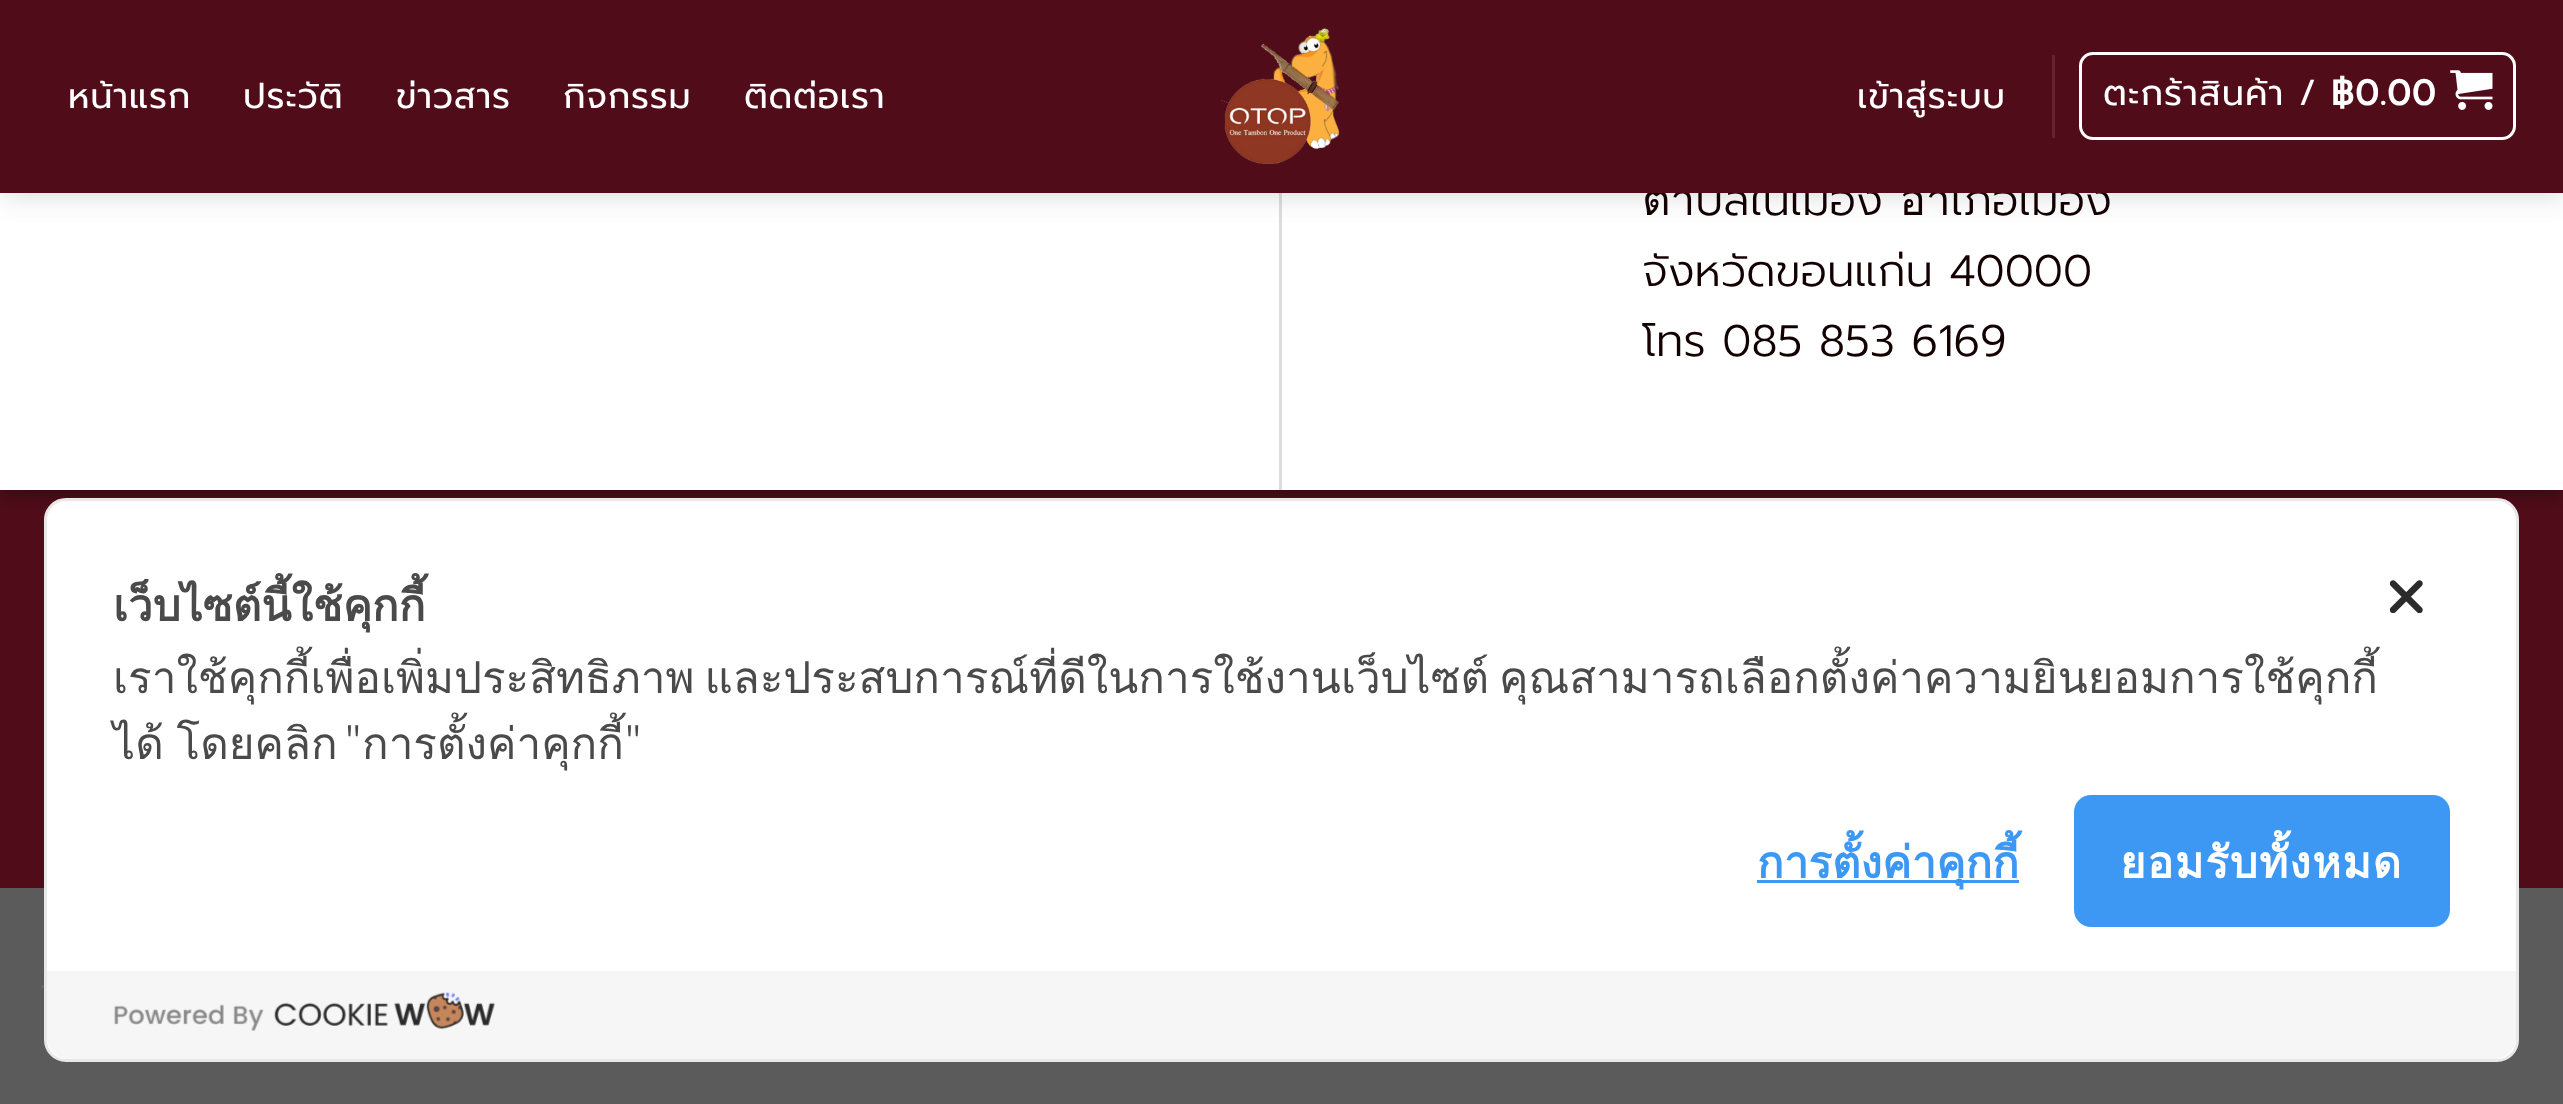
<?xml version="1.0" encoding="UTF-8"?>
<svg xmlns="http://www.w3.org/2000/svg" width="2563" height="1104">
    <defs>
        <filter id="blur1" x="-50%" y="-200%" width="200%" height="500%"><feGaussianBlur stdDeviation="8"/></filter>
        <filter id="blur2" x="-50%" y="-200%" width="200%" height="500%"><feGaussianBlur stdDeviation="14"/></filter>
    </defs>
    <rect width="100%" height="100%" fill="#5B5B5B"/>
    <rect x="0" y="490" width="2563" height="398" fill="#500C19"/>
    <rect x="0" y="-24" width="2563" height="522" fill="#000000" fill-opacity="0.23" filter="url(#blur1)"/>
    <rect x="11" y="-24" width="2541" height="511" fill="#000000" fill-opacity="0.16" filter="url(#blur1)"/>
    <rect x="0" y="193" width="2563" height="297" fill="#FFFFFF"/>
    <rect x="1279" y="193" width="3" height="297" fill="#DDDDDD"/>
    <rect x="3" y="3" width="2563" height="192" fill="#000000" fill-opacity="0.15" filter="url(#blur2)"/>
    <text x="1642" y="215" font-family="Prompt" font-size="44" font-weight="300" fill="#130101">ตำบลในเมือง อำเภอเมือง</text>
    <rect x="0" y="0" width="2563" height="193" fill="#500C19"/>
    <text x="68" y="108" font-family="Prompt" font-size="35.25" letter-spacing="0.75" fill="#FFFFFF">หน้าแรก</text>
    <text x="243" y="108" font-family="Prompt" font-size="35.25" letter-spacing="0.75" fill="#FFFFFF">ประวัติ</text>
    <text x="396" y="108" font-family="Prompt" font-size="35.25" letter-spacing="0.75" fill="#FFFFFF">ข่าวสาร</text>
    <text x="563" y="108" font-family="Prompt" font-size="35.25" letter-spacing="0.75" fill="#FFFFFF">กิจกรรม</text>
    <text x="744" y="108" font-family="Prompt" font-size="35.25" letter-spacing="0.75" fill="#FFFFFF">ติดต่อเรา</text>
    <image x="1221" y="28" width="119" height="136" href="img_01.png"/>
    <text x="1857" y="108" font-family="Prompt" font-size="35.25" letter-spacing="0.75" fill="#FFFFFF">เข้าสู่ระบบ</text>
    <rect x="2052" y="55" width="3" height="83" fill="#622430"/>
    <rect x="2080.5" y="53.5" width="434" height="85" rx="12.5" fill="none" stroke="#FFFFFF" stroke-width="3"/>
    <text x="2103" y="105" font-family="Prompt" font-size="35.25" letter-spacing="1" fill="#FFFFFF">ตะกร้าสินค้า</text>
    <text x="2299" y="105" font-family="Prompt" font-size="35.25" letter-spacing="1" fill="#FFFFFF">/</text>
    <text x="2331" y="105" font-family="Prompt" font-size="35.25" font-weight="700" letter-spacing="1" fill="#FFFFFF">฿0.00</text>
    <image x="2450" y="70" width="43" height="40" href="img_02.png"/>
    <text font-family="Prompt" font-size="44" font-weight="300" fill="#130101">
        <tspan x="1642" y="286">จังหวัดขอนแก่น 40000</tspan>
        <tspan x="1642" y="356">โทร 085 853 6169</tspan>
    </text>
    <rect x="41" y="985" width="3" height="3" fill="#656565"/>
    <rect x="45.5" y="499.5" width="2472" height="561" rx="20.5" fill="#FFFFFF" stroke="#E8E8E8" stroke-width="3"/>
    <text x="113" y="621" font-family="Loma" font-size="44" font-weight="700" fill="#4A4A4A">เว็บไซต์นี้ใช้คุกกี้</text>
    <text font-family="Loma" font-size="44" fill="#4A4A4A">
        <tspan x="113" y="693" word-spacing="-5">เราใช้คุกกี้เพื่อเพิ่มประสิทธิภาพ และประสบการณ์ที่ดีในการใช้งานเว็บไซต์ คุณสามารถเลือกตั้งค่าความยินยอมการใช้คุกกี้</tspan>
        <tspan x="113" y="759" word-spacing="-2">ได้ โดยคลิก</tspan>
    </text>
    <text x="344" y="759" font-family="Noto Sans JP" font-size="44" font-weight="300" fill="#4A4A4A">"</text>
    <text x="362" y="759" font-family="Loma" font-size="44" fill="#4A4A4A">การตั้งค่าคุกกี้</text>
    <text x="624" y="759" font-family="Noto Sans JP" font-size="44" font-weight="300" fill="#4A4A4A">"</text>
    <rect x="1757" y="880" width="262" height="3" fill="#3D98F3"/>
    <text x="1757" y="878" font-family="Loma" font-size="44" font-weight="700" fill="#3D98F3">การตั้งค่าคุกกี้</text>
    <rect x="2074" y="795" width="376" height="132" rx="17" fill="#3D98F3"/>
    <text x="2120" y="878" font-family="Loma" font-size="44" font-weight="700" letter-spacing="1.25" fill="#FFFFFF">ยอมรับทั้งหมด</text>
    <image x="2390" y="580" width="33" height="33" href="img_03.png"/>
    <path d="M 47 971 H 2516 V 1037 C 2516 1049 2506 1059 2494 1059 H 69 C 57 1059 47 1049 47 1037 Z" fill="#F6F6F6"/>
    <image x="114" y="992" width="381" height="39" href="img_04.png"/>
</svg>
